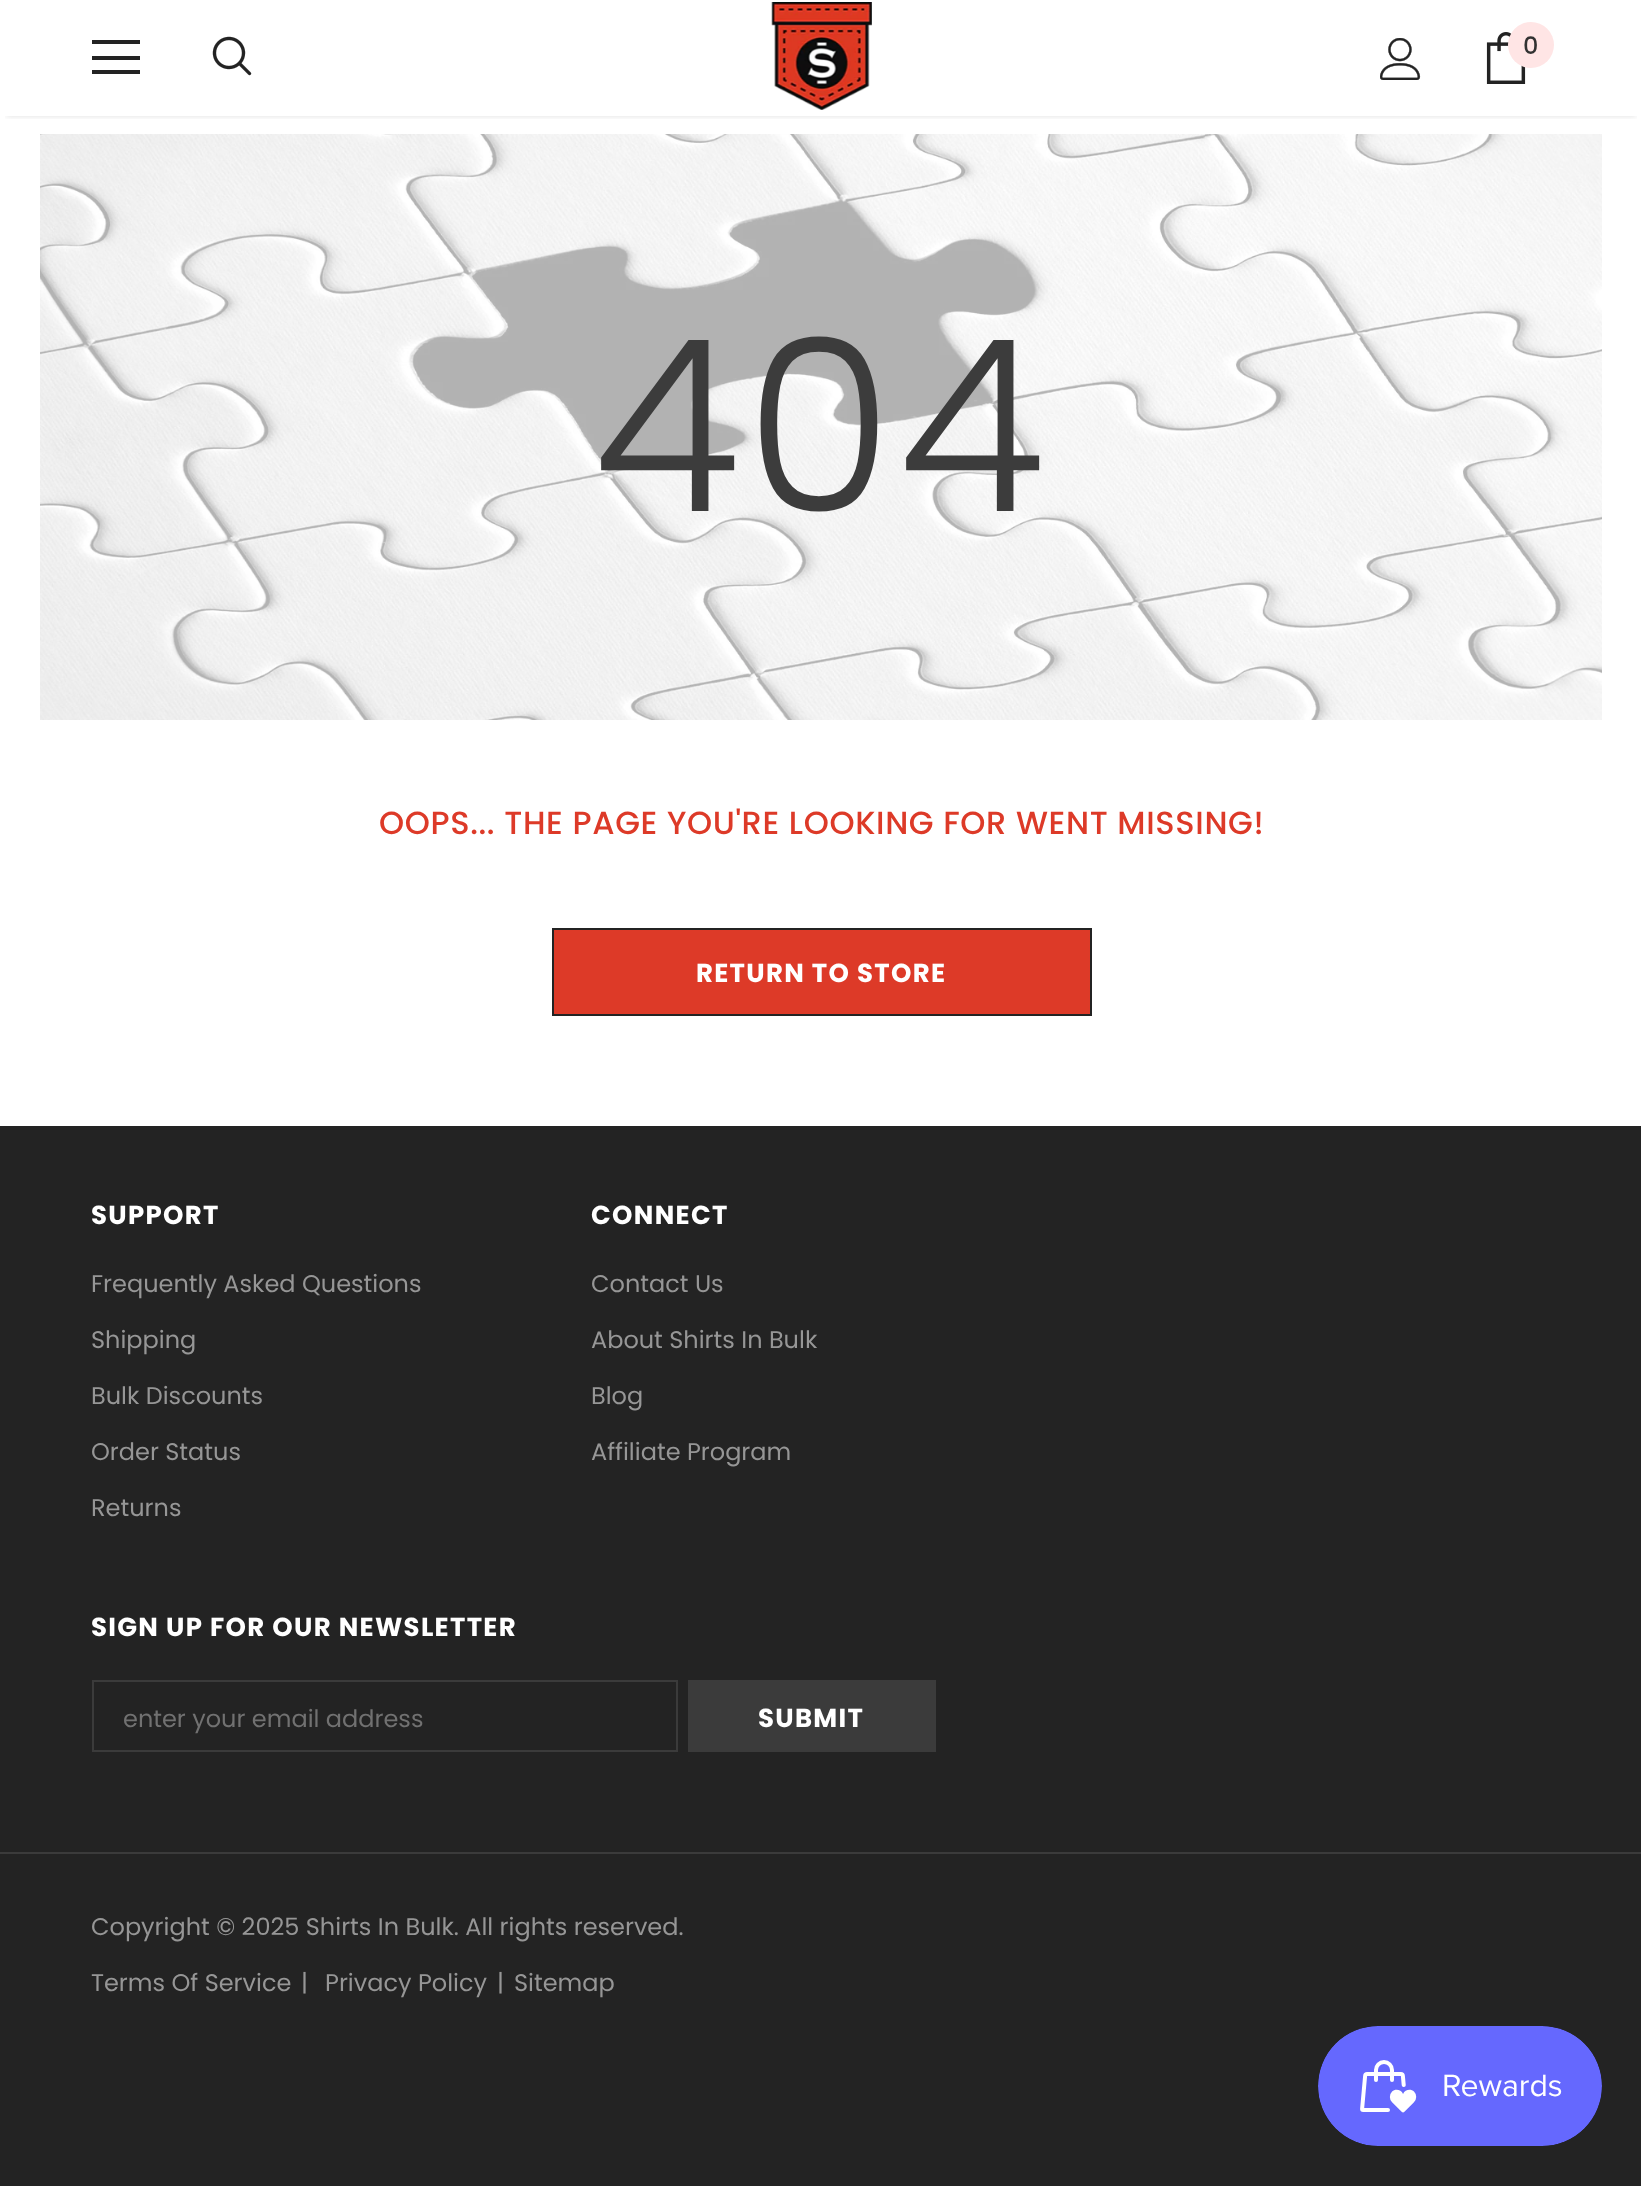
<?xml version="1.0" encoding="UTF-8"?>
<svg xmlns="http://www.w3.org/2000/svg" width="1641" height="2186">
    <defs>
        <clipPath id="clip1"><rect x="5" y="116" width="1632" height="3"/></clipPath>
        <filter id="blur1" x="-50%" y="-200%" width="200%" height="500%"><feGaussianBlur stdDeviation="3"/></filter>
    </defs>
    <rect width="100%" height="100%" fill="#FFFFFF"/>
    <g clip-path="url(#clip1)">
        <rect x="6" y="12" width="1630" height="104" fill="#000000" fill-opacity="0.12" filter="url(#blur1)"/>
    </g>
    <rect x="92" y="40" width="48" height="4" fill="#232323"/>
    <rect x="92" y="56" width="48" height="4" fill="#232323"/>
    <rect x="92" y="70" width="48" height="4" fill="#232323"/>
    <image x="212" y="36" width="40" height="40" href="img_01.png"/>
    <image x="771" y="2" width="101" height="108" href="img_02.png"/>
    <image x="1380" y="38" width="41" height="42" href="img_03.png"/>
    <image x="1486" y="32" width="40" height="52" href="img_04.png"/>
    <circle cx="1531" cy="45" r="23" fill="#FFE5E5"/>
    <text x="1523" y="54" font-family="Poppins" font-size="24" font-weight="500" fill="#323232">0</text>
    <image x="40" y="134" width="1562" height="586" href="img_05.png"/>
    <text x="593" y="511" font-family="Poppins" font-size="240" font-weight="300" letter-spacing="5" fill="#3C3C3C">404</text>
    <text x="379" y="834" font-family="Poppins" font-size="32" font-weight="500" letter-spacing="0.65" fill="#DD3A28">OOPS... THE PAGE YOU'RE LOOKING FOR WENT MISSING!</text>
    <rect x="553" y="929" width="538" height="86" fill="#DD3A28" stroke="#232323" stroke-width="2"/>
    <text x="696" y="982" font-family="Poppins" font-size="26" font-weight="700" letter-spacing="1.3" fill="#FFFFFF">RETURN TO STORE</text>
    <rect x="0" y="1126" width="1641" height="1060" fill="#232323"/>
    <text x="91" y="1224" font-family="Poppins" font-size="26" font-weight="700" letter-spacing="1.3" fill="#FFFFFF">SUPPORT</text>
    <text x="91" y="1292" font-family="Poppins" font-size="24" fill="#969696">Frequently Asked Questions</text>
    <text x="91" y="1348" font-family="Poppins" font-size="24" fill="#969696">Shipping</text>
    <text x="91" y="1404" font-family="Poppins" font-size="24" fill="#969696">Bulk Discounts</text>
    <text x="91" y="1460" font-family="Poppins" font-size="24" fill="#969696">Order Status</text>
    <text x="91" y="1516" font-family="Poppins" font-size="24" fill="#969696">Returns</text>
    <text x="591" y="1224" font-family="Poppins" font-size="26" font-weight="700" letter-spacing="1.3" fill="#FFFFFF">CONNECT</text>
    <text x="591" y="1292" font-family="Poppins" font-size="24" fill="#969696">Contact Us</text>
    <text x="591" y="1348" font-family="Poppins" font-size="24" fill="#969696">About Shirts In Bulk</text>
    <text x="591" y="1404" font-family="Poppins" font-size="24" fill="#969696">Blog</text>
    <text x="591" y="1460" font-family="Poppins" font-size="24" fill="#969696">Affiliate Program</text>
    <text x="91" y="1636" font-family="Poppins" font-size="26" font-weight="700" letter-spacing="1.3" fill="#FFFFFF">SIGN UP FOR OUR NEWSLETTER</text>
    <rect x="93" y="1681" width="584" height="70" fill="none" stroke="#3B3B3B" stroke-width="2"/>
    <text x="123" y="1727" font-family="Poppins" font-size="24" fill="#717171">enter your email address</text>
    <rect x="688" y="1680" width="248" height="72" fill="#3B3B3B"/>
    <text x="758" y="1727" font-family="Poppins" font-size="26" font-weight="700" letter-spacing="1.3" fill="#FFFFFF">SUBMIT</text>
    <rect x="0" y="1852" width="1641" height="2" fill="#3B3B3B"/>
    <text x="91" y="1935" font-family="Poppins" font-size="24" fill="#969696">Copyright © 2025 Shirts In Bulk. All rights reserved.</text>
    <text x="91" y="1991" font-family="Poppins" font-size="24" fill="#969696">Terms Of Service</text>
    <text x="301" y="1991" font-family="Poppins" font-size="24" fill="#969696">|</text>
    <text x="325" y="1991" font-family="Poppins" font-size="24" fill="#969696">Privacy Policy</text>
    <text x="497" y="1991" font-family="Poppins" font-size="24" fill="#969696">|</text>
    <text x="514" y="1991" font-family="Poppins" font-size="24" fill="#969696">Sitemap</text>
    <image x="1318" y="2026" width="284" height="120" href="img_06.png"/>
</svg>
